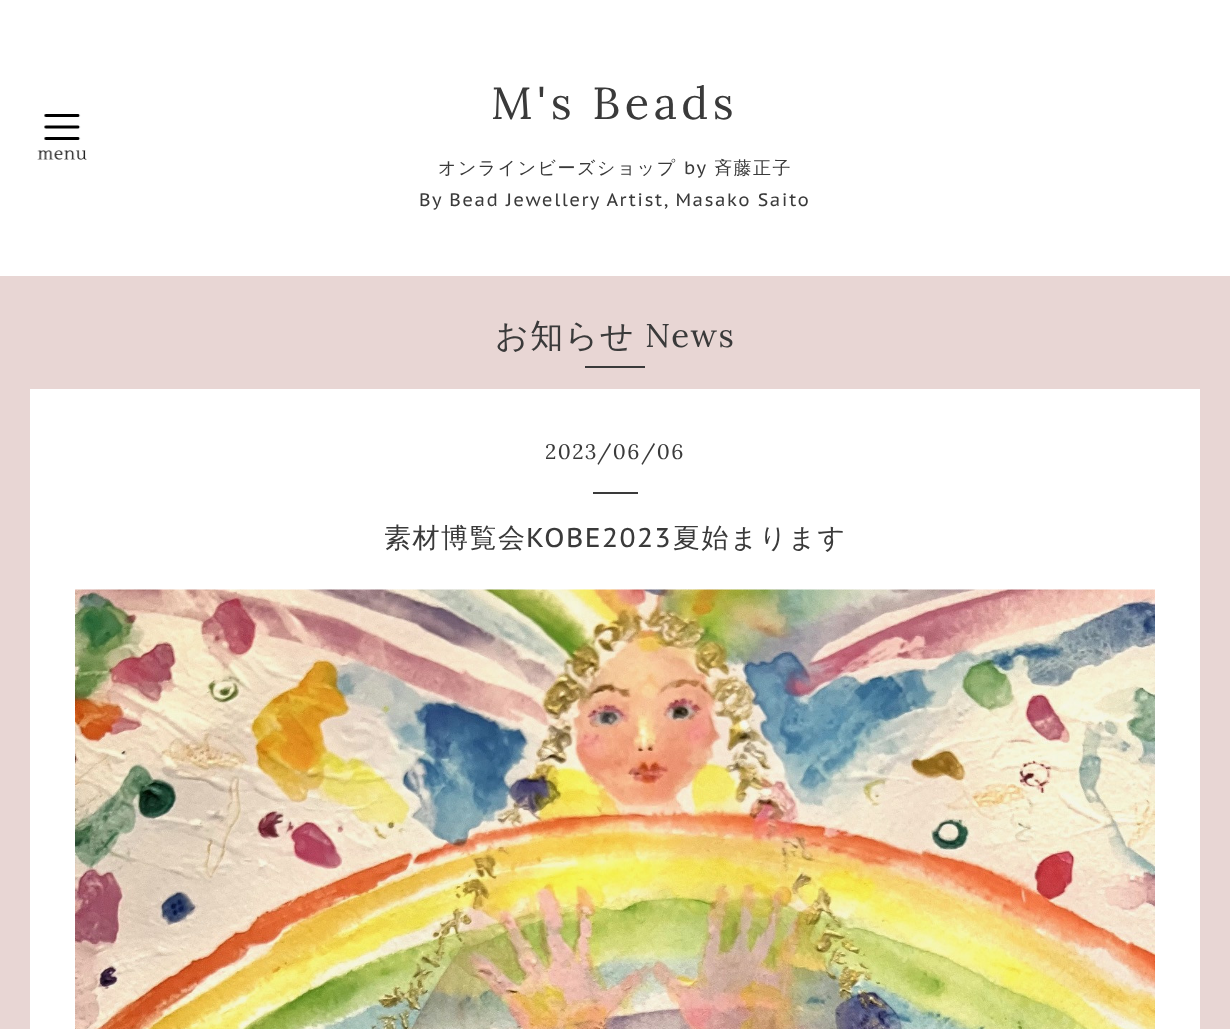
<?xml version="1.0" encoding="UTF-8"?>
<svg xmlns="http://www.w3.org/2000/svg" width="1230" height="1029">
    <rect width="100%" height="100%" fill="#FFFFFF"/>
    <image x="37" y="114" width="50" height="46" href="img_01.png"/>
    <text x="491" y="119" font-family="Lora" font-size="45" letter-spacing="4.5" fill="#3A3A3A">M's Beads</text>
    <text x="438" y="174" font-family="WenQuanYi Zen Hei" font-size="18" font-weight="500" letter-spacing="1.5" fill="#3A3A3A">オンラインビーズショップ</text>
    <text x="684" y="174" font-family="PT Sans Caption" font-size="18" letter-spacing="1.5" fill="#3A3A3A">by</text>
    <text x="714" y="174" font-family="WenQuanYi Zen Hei" font-size="18" font-weight="500" letter-spacing="1.5" fill="#3A3A3A">斉藤正子</text>
    <text x="419" y="206" font-family="PT Sans Caption" font-size="18" letter-spacing="1.5" fill="#3A3A3A">By Bead Jewellery Artist, Masako Saito</text>
    <rect x="0" y="276" width="1230" height="753" fill="#E8D6D4"/>
    <text x="495" y="347" font-family="WenQuanYi Zen Hei" font-size="33" font-weight="500" letter-spacing="1.5" fill="#3A3A3A">お知らせ</text>
    <text x="645" y="347" font-family="Lora" font-size="33" letter-spacing="1.5" fill="#3A3A3A">News</text>
    <rect x="585" y="366" width="60" height="2" fill="#3A3A3A"/>
    <rect x="30" y="389" width="1170" height="640" fill="#FFFFFF"/>
    <text x="545" y="459" font-family="Lora" font-size="21" letter-spacing="1.5" fill="#3A3A3A">2023</text>
    <text x="597" y="459" font-family="Lora" font-size="21" letter-spacing="1.5" fill="#3A3A3A">/06</text>
    <text x="641" y="459" font-family="Lora" font-size="21" letter-spacing="1.5" fill="#3A3A3A">/06</text>
    <rect x="593" y="492" width="45" height="2" fill="#3A3A3A"/>
    <text x="384" y="547" font-family="WenQuanYi Zen Hei" font-size="27" font-weight="500" letter-spacing="1.5" fill="#3A3A3A">素材博覧会</text>
    <text x="526" y="547" font-family="PT Sans Caption" font-size="27" letter-spacing="1.5" fill="#3A3A3A">KOBE2023</text>
    <text x="673" y="547" font-family="WenQuanYi Zen Hei" font-size="27" font-weight="500" letter-spacing="1.5" fill="#3A3A3A">夏始まります</text>
    <image x="75" y="589" width="1080" height="440" href="img_02.png"/>
</svg>
